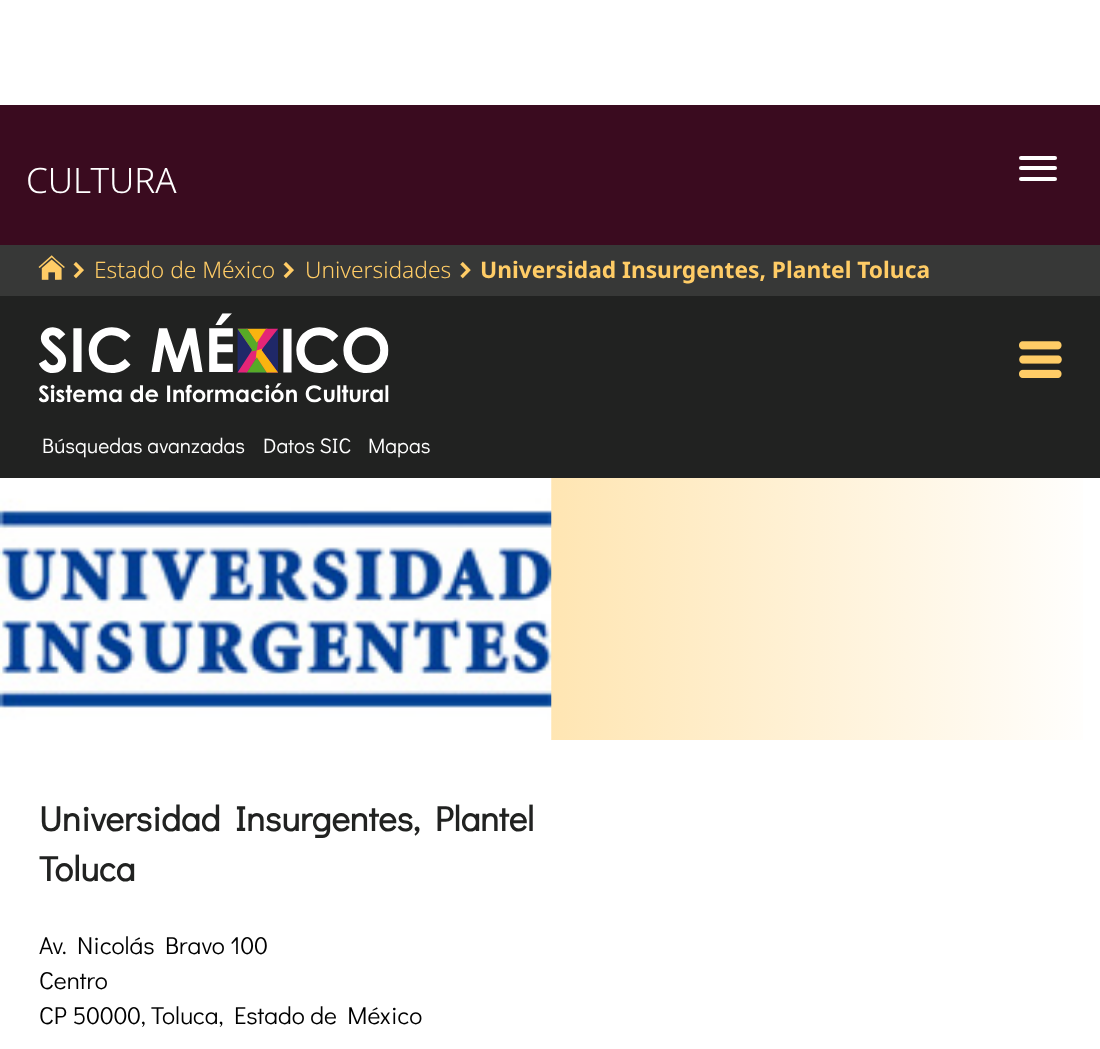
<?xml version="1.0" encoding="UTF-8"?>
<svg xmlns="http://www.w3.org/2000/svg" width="1100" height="1049">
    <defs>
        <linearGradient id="g1" gradientUnits="userSpaceOnUse" x1="0" y1="609" x2="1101" y2="609"><stop offset="0" stop-color="#FFCC66"/><stop offset="1" stop-color="#FFFFFF"/></linearGradient>
    </defs>
    <rect width="100%" height="100%" fill="#FFFFFF"/>
    <rect x="0" y="105" width="1100" height="140" fill="#3A0B1F"/>
    <text x="26" y="193" font-family="Noto Sans" font-size="35" font-weight="300" fill="#FFFFFF">CULTURA</text>
    <rect x="1019" y="156" width="38" height="4" rx="2" fill="#FFFFFF"/>
    <rect x="1019" y="166" width="38" height="4" rx="2" fill="#FFFFFF"/>
    <rect x="1019" y="177" width="38" height="4" rx="2" fill="#FFFFFF"/>
    <rect x="0" y="245" width="1100" height="51" fill="#373837"/>
    <image x="38" y="255" width="27" height="25" href="img_01.png"/>
    <image x="73" y="262" width="11" height="17" href="img_02.png"/>
    <text x="94" y="278" font-family="Noto Sans" font-size="22.75" font-weight="300" fill="#FFCC66">Estado de México</text>
    <image x="283" y="262" width="11" height="17" href="img_02.png"/>
    <text x="305" y="278" font-family="Noto Sans" font-size="22.75" font-weight="300" fill="#FFCC66">Universidades</text>
    <image x="460" y="261" width="11" height="18" href="img_03.png"/>
    <text x="480" y="278" font-family="Noto Sans" font-size="22.75" font-weight="700" fill="#FFCC66">Universidad Insurgentes, Plantel Toluca</text>
    <rect x="0" y="296" width="1100" height="182" fill="#212221"/>
    <image x="39" y="313" width="350" height="90" href="img_04.png"/>
    <image x="1019" y="341" width="43" height="37" href="img_05.png"/>
    <text x="42" y="453" font-family="Didact Gothic" font-size="21" fill="#FFFFFF">Búsquedas avanzadas</text>
    <text x="263" y="453" font-family="Didact Gothic" font-size="21" fill="#FFFFFF">Datos SIC</text>
    <text x="368" y="453" font-family="Didact Gothic" font-size="21" fill="#FFFFFF">Mapas</text>
    <rect x="551" y="478" width="532" height="262" fill="url(#g1)"/>
    <image x="0" y="478" width="552" height="262" href="img_06.png"/>
    <text font-family="Didact Gothic" font-size="35" font-weight="700" fill="#212221">
        <tspan x="39" y="831">Universidad Insurgentes, Plantel</tspan>
        <tspan x="39" y="881">Toluca</tspan>
    </text>
    <text font-family="Didact Gothic" font-size="24.5" fill="#000000">
        <tspan x="39" y="954">Av. Nicolás Bravo 100</tspan>
        <tspan x="39" y="989">Centro</tspan>
        <tspan x="39" y="1024">CP 50000, Toluca, Estado de México</tspan>
    </text>
</svg>
